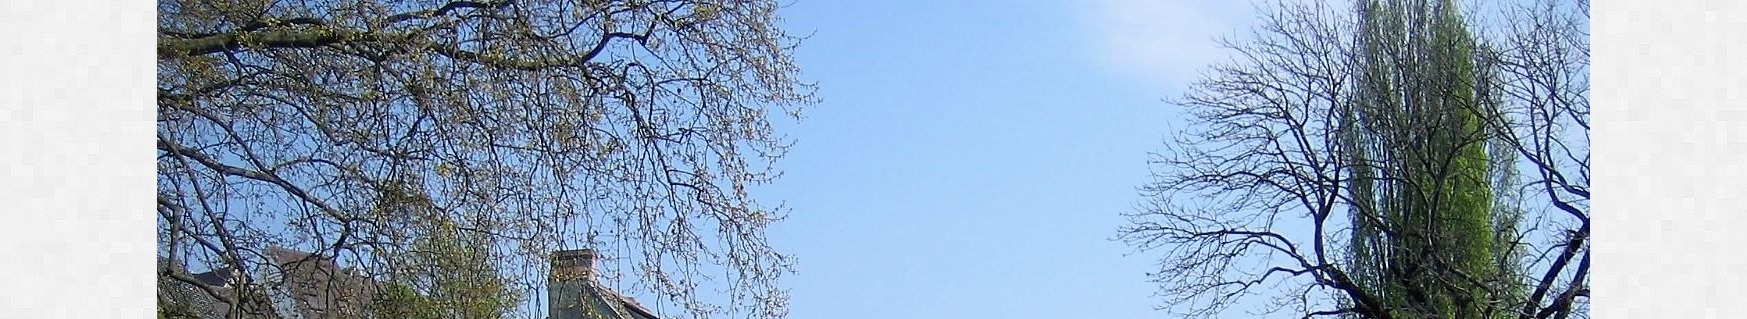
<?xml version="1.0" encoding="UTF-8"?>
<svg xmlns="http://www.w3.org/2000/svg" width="1747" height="319">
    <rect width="100%" height="100%" fill="#FFFFFF"/>
    <image x="0" y="0" width="1747" height="319" href="img_01.png"/>
    <image x="157" y="0" width="1433" height="319" href="img_02.png"/>
</svg>
